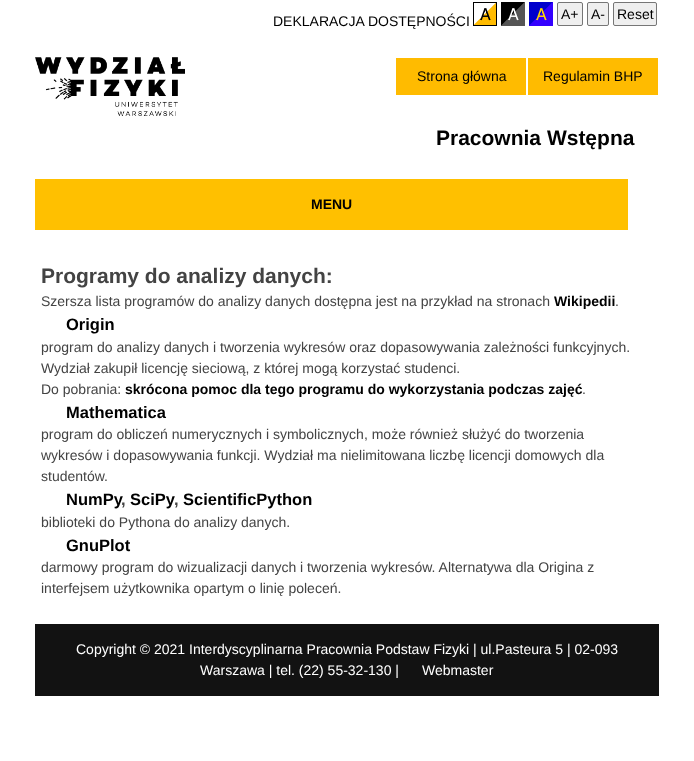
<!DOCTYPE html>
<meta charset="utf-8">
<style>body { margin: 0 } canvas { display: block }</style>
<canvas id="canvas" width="694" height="761"></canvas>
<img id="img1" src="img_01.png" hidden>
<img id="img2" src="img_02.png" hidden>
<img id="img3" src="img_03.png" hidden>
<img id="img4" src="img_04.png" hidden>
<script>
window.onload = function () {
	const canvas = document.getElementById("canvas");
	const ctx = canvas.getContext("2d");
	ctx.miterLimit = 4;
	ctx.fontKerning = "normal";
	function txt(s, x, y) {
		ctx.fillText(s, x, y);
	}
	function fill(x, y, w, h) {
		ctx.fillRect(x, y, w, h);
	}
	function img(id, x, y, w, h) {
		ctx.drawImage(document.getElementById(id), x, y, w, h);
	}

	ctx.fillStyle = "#FFFFFF";
	fill(0, 0, 694, 761);
	img("img1", 473, 2, 24, 24);
	img("img2", 501, 2, 24, 24);
	img("img3", 529, 2, 24, 24);
	ctx.fillStyle = "#EFEFEF";
	ctx.beginPath();
	ctx.roundRect(557.5, 2.5, 25, 23, 1.5);
	ctx.fill();
	ctx.strokeStyle = "#767676";
	ctx.stroke();
	ctx.beginPath();
	ctx.roundRect(587.5, 2.5, 21, 23, 1.5);
	ctx.fill();
	ctx.stroke();
	ctx.beginPath();
	ctx.roundRect(613.5, 2.5, 43, 23, 1.5);
	ctx.fill();
	ctx.stroke();
	img("img4", 35, 57, 150, 59);
	ctx.fillStyle = "#FFBB00";
	fill(396, 58, 130, 37);
	fill(528, 58, 130, 37);
	ctx.fillStyle = "#FFC000";
	fill(35, 179, 593, 51);
	ctx.fillStyle = "#121212";
	fill(35, 624, 624, 72);
	ctx.font = "14px Liberation Sans";
	ctx.fillStyle = "#000000";
	txt("DEKLARACJA DOSTĘPNOŚCI", 273, 26);
	txt("A+", 561, 19);
	txt("A-", 591, 19);
	txt("Reset", 617, 19);
	txt("Strona główna", 417, 81);
	txt("Regulamin BHP", 543, 81);
	ctx.font = "bold 21px Liberation Sans";
	txt("Pracownia Wstępna", 436, 145);
	ctx.font = "bold 14px Liberation Sans";
	txt("MENU", 311, 209);
	ctx.font = "bold 21px Liberation Sans";
	ctx.fillStyle = "#434343";
	txt("Programy do analizy danych:", 41, 283);
	ctx.font = "14px Liberation Sans";
	txt("Szersza lista programów do analizy danych dostępna jest na przykład na stronach", 41, 306);
	ctx.font = "bold 14px Liberation Sans";
	ctx.fillStyle = "#000000";
	txt("Wikipedii", 554, 306);
	ctx.font = "14px Liberation Sans";
	ctx.fillStyle = "#434343";
	txt(".", 615, 306);
	ctx.font = "bold 16.5px Liberation Sans";
	ctx.fillStyle = "#000000";
	txt("Origin", 66, 330);
	ctx.font = "14px Liberation Sans";
	ctx.fillStyle = "#434343";
	txt("program do analizy danych i tworzenia wykresów oraz dopasowywania zależności funkcyjnych.", 41, 352);
	txt("Wydział zakupił licencję sieciową, z której mogą korzystać studenci.", 41, 373);
	txt("Do pobrania:", 41, 394);
	ctx.font = "bold 14px Liberation Sans";
	ctx.fillStyle = "#000000";
	txt("skrócona pomoc dla tego programu do wykorzystania podczas zajęć", 125, 394);
	ctx.font = "14px Liberation Sans";
	ctx.fillStyle = "#434343";
	txt(".", 582, 394);
	ctx.font = "bold 16.5px Liberation Sans";
	ctx.fillStyle = "#000000";
	txt("Mathematica", 66, 418);
	ctx.font = "14px Liberation Sans";
	ctx.fillStyle = "#434343";
	txt("program do obliczeń numerycznych i symbolicznych, może również służyć do tworzenia", 41, 439);
	txt("wykresów i dopasowywania funkcji. Wydział ma nielimitowana liczbę licencji domowych dla", 41, 460);
	txt("studentów.", 41, 481);
	ctx.font = "bold 16.5px Liberation Sans";
	ctx.fillStyle = "#000000";
	txt("NumPy", 66, 505);
	ctx.fillStyle = "#434343";
	txt(",", 121, 505);
	ctx.fillStyle = "#000000";
	txt("SciPy", 130, 505);
	ctx.fillStyle = "#434343";
	txt(",", 174, 505);
	ctx.fillStyle = "#000000";
	txt("ScientificPython", 183, 505);
	ctx.font = "14px Liberation Sans";
	ctx.fillStyle = "#434343";
	txt("biblioteki do Pythona do analizy danych.", 41, 527);
	ctx.font = "bold 16.5px Liberation Sans";
	ctx.fillStyle = "#000000";
	txt("GnuPlot", 66, 551);
	ctx.font = "14px Liberation Sans";
	ctx.fillStyle = "#434343";
	txt("darmowy program do wizualizacji danych i tworzenia wykresów. Alternatywa dla Origina z", 41, 572);
	txt("interfejsem użytkownika opartym o linię poleceń.", 41, 593);
	ctx.fillStyle = "#FFFFFF";
	txt("Copyright © 2021 Interdyscyplinarna Pracownia Podstaw Fizyki | ul.Pasteura 5 | 02-093", 76, 654);
	txt("Warszawa | tel. (22) 55-32-130 |", 200, 675);
	txt("Webmaster", 422, 675);
};
</script>
